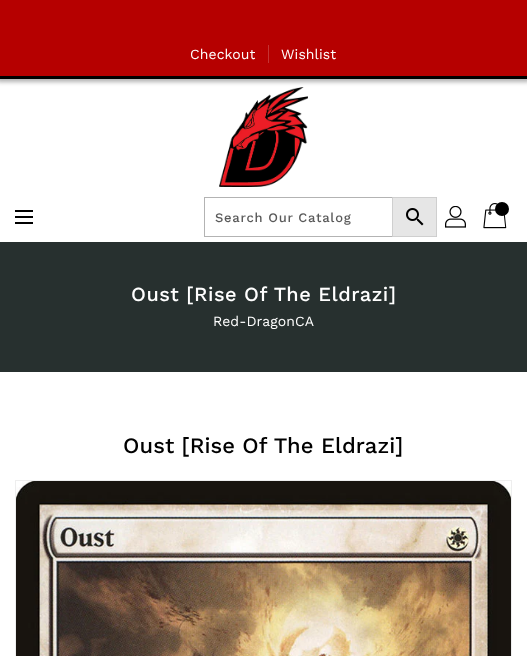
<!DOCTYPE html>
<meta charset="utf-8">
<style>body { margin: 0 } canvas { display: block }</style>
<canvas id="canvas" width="527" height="656"></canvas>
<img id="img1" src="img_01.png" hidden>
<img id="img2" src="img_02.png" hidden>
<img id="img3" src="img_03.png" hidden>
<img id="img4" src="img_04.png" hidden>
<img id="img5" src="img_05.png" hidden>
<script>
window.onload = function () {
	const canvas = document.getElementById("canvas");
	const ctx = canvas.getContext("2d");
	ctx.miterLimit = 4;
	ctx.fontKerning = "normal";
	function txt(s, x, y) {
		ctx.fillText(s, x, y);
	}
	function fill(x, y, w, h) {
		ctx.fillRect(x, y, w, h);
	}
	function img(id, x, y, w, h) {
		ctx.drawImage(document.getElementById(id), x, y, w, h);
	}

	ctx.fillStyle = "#FFFFFF";
	fill(0, 0, 527, 656);
	ctx.fillStyle = "rgba(0, 0, 0, 0.3)";
	ctx.filter = "blur(2px)";
	ctx.beginPath();
	ctx.rect(-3, -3, 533, 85);
	ctx.fill();
	ctx.filter = "none";
	ctx.fillStyle = "#B60000";
	fill(0, 0, 527, 76);
	ctx.fillStyle = "#000000";
	fill(0, 76, 527, 3);
	ctx.fillStyle = "#C53333";
	fill(268, 45, 1, 18);
	img("img1", 219, 87, 89, 100);
	ctx.fillStyle = "#000000";
	fill(15, 210, 18, 2);
	fill(15, 216, 18, 2);
	fill(15, 222, 18, 2);
	ctx.strokeStyle = "#B3B3B3";
	ctx.strokeRect(204.5, 197.5, 232, 39);
	ctx.fillStyle = "#E6E6E6";
	ctx.beginPath();
	ctx.rect(392.5, 197.5, 44, 39);
	ctx.fill();
	ctx.strokeStyle = "#CFCFCF";
	ctx.stroke();
	img("img2", 406, 208, 18, 18);
	img("img3", 445, 206, 21, 22);
	img("img4", 483, 203, 24, 26);
	ctx.fillStyle = "#000000";
	ctx.beginPath();
	ctx.arc(502, 209, 7, 0, Math.PI * 2);
	ctx.fill();
	ctx.fillStyle = "#27302F";
	fill(0, 242, 527, 130);
	ctx.strokeStyle = "#EEEEEE";
	ctx.strokeRect(15.5, 480.5, 496, 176);
	img("img5", 16, 481, 495, 175);
	ctx.letterSpacing = "0.1px";
	ctx.font = "14px Work Sans";
	ctx.fillStyle = "#FFFFFF";
	txt("Checkout", 190, 59);
	txt("Wishlist", 281, 59);
	ctx.letterSpacing = "0.75px";
	ctx.font = "500 13px Work Sans";
	ctx.fillStyle = "#595959";
	txt("Search Our Catalog", 215, 222);
	ctx.letterSpacing = "0.5px";
	ctx.font = "500 20px Work Sans";
	ctx.fillStyle = "#FFFFFF";
	txt("Oust [Rise Of The Eldrazi]", 131, 301);
	ctx.letterSpacing = "0.1px";
	ctx.font = "14px Work Sans";
	txt("Red-DragonCA", 213, 326);
	ctx.font = "500 22px Work Sans";
	ctx.fillStyle = "#000000";
	txt("Oust [Rise Of The Eldrazi]", 123, 453);
};
</script>
